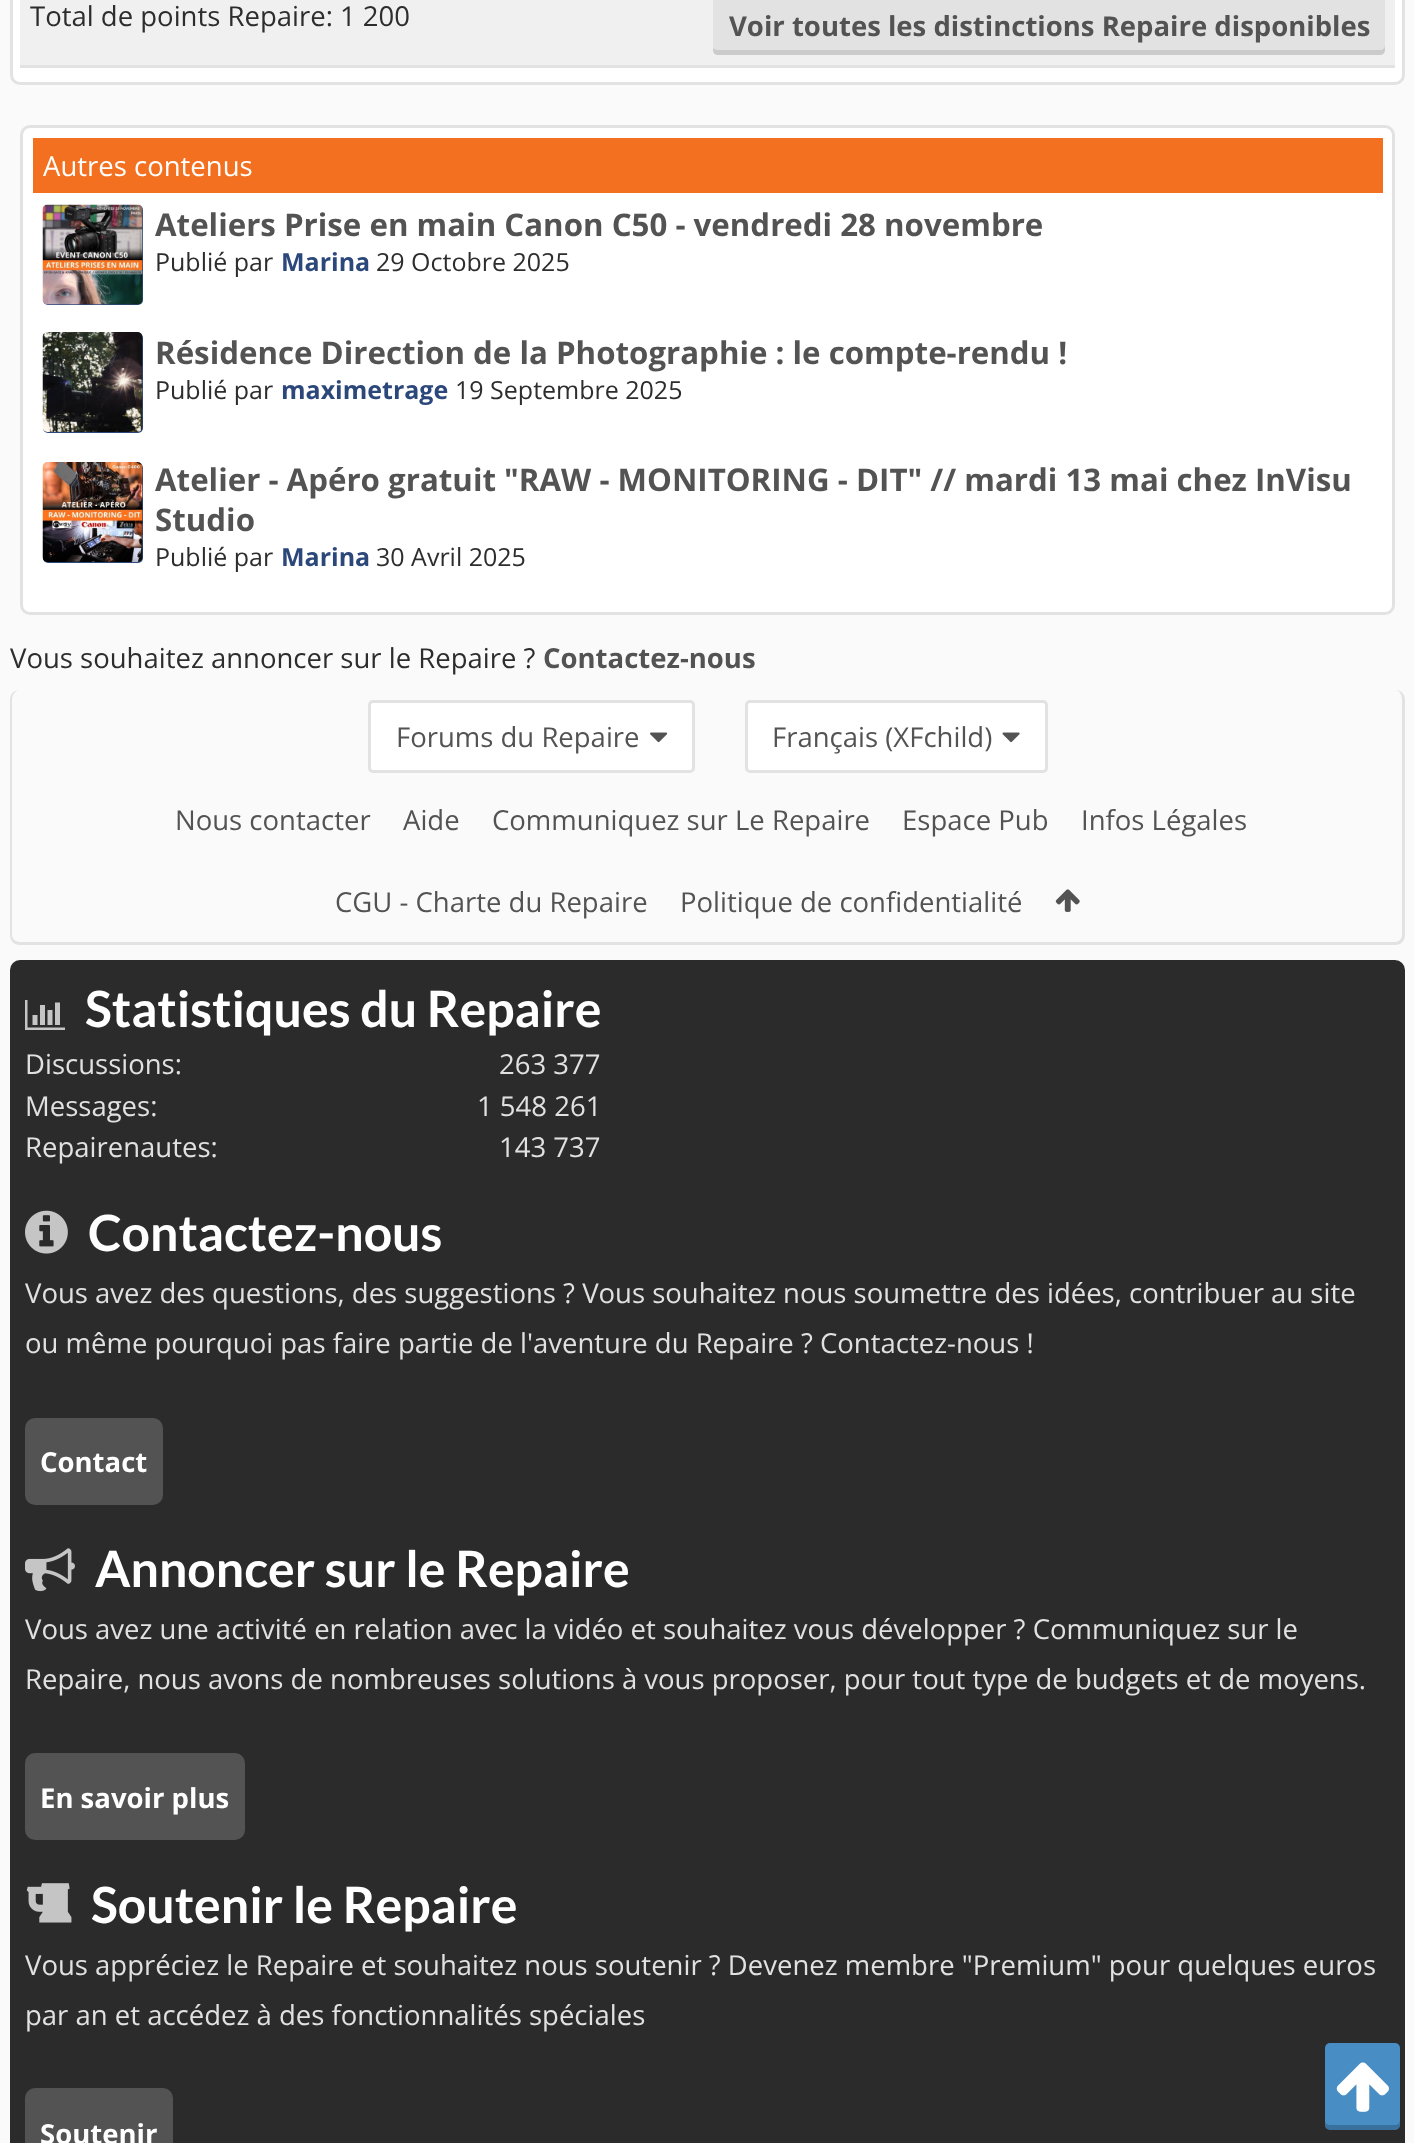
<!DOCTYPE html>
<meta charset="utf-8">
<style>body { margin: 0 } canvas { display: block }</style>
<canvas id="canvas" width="1414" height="2143"></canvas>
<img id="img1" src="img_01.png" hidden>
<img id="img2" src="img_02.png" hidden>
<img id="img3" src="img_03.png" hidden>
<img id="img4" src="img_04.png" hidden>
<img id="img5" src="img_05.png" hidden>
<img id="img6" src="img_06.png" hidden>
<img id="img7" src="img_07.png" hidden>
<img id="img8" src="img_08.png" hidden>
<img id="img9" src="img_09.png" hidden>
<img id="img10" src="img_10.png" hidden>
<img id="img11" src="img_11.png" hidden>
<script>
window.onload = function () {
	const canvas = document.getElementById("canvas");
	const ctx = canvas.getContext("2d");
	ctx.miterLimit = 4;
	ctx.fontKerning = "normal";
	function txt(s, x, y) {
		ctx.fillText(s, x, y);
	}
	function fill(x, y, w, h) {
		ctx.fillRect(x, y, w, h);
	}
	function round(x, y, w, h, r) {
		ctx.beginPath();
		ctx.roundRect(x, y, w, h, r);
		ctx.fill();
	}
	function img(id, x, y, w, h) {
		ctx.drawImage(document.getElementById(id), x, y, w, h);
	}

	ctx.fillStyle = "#FAFAFA";
	fill(0, 0, 1414, 2143);
	ctx.fillStyle = "#FFFFFF";
	ctx.beginPath();
	ctx.roundRect(11.5, -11.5, 1392, 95, 8.5);
	ctx.fill();
	ctx.strokeStyle = "#E2E2E2";
	ctx.lineWidth = 3;
	ctx.stroke();
	ctx.fillStyle = "#F0F0F0";
	fill(20, 0, 1375, 65);
	ctx.fillStyle = "#E2E2E2";
	fill(20, 65, 1375, 3);
	round(713, -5, 672, 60, 5);
	ctx.fillStyle = "rgba(0, 0, 0, 0.1)";
	ctx.beginPath();
	ctx.moveTo(713, 48);
	ctx.lineTo(713, 50);
	ctx.bezierCurveTo(713, 53, 715, 55, 718, 55);
	ctx.lineTo(1380, 55);
	ctx.bezierCurveTo(1383, 55, 1385, 53, 1385, 50);
	ctx.lineTo(1385, 45);
	ctx.bezierCurveTo(1385, 48, 1383, 50, 1380, 50);
	ctx.lineTo(718, 50);
	ctx.bezierCurveTo(716, 50, 714, 49, 713, 48);
	ctx.closePath();
	ctx.fill();
	ctx.fillStyle = "#FFFFFF";
	ctx.beginPath();
	ctx.roundRect(21.5, 126.5, 1372, 487, 8.5);
	ctx.fill();
	ctx.stroke();
	ctx.fillStyle = "#F37020";
	fill(33, 138, 1350, 55);
	ctx.fillStyle = "#2C487B";
	round(43, 205, 100, 100, 5);
	img("img1", 42, 204, 101, 101);
	round(43, 333, 100, 100, 5);
	img("img2", 42, 332, 101, 100);
	round(43, 463, 100, 100, 5);
	img("img3", 42, 462, 101, 100);
	ctx.fillStyle = "#E2E2E2";
	ctx.beginPath();
	ctx.moveTo(20, 690);
	ctx.lineTo(1395, 690);
	ctx.bezierCurveTo(1401, 690, 1405, 694, 1405, 700);
	ctx.lineTo(1405, 935);
	ctx.bezierCurveTo(1405, 941, 1401, 945, 1395, 945);
	ctx.lineTo(20, 945);
	ctx.bezierCurveTo(14, 945, 10, 941, 10, 935);
	ctx.lineTo(10, 700);
	ctx.bezierCurveTo(10, 694, 14, 690, 20, 690);
	ctx.closePath();
	ctx.moveTo(20, 690);
	ctx.lineTo(1395, 690);
	ctx.bezierCurveTo(1399, 690, 1402, 694, 1402, 700);
	ctx.lineTo(1402, 935);
	ctx.bezierCurveTo(1402, 939, 1399, 942, 1395, 942);
	ctx.lineTo(20, 942);
	ctx.bezierCurveTo(16, 942, 12, 939, 12, 935);
	ctx.lineTo(12, 700);
	ctx.bezierCurveTo(12, 694, 16, 690, 20, 690);
	ctx.closePath();
	ctx.fill("evenodd");
	ctx.fillStyle = "#FFFFFF";
	ctx.beginPath();
	ctx.roundRect(369.5, 701.5, 324, 70, 3.5);
	ctx.fill();
	ctx.stroke();
	img("img4", 650, 732, 18, 11);
	ctx.beginPath();
	ctx.roundRect(746.5, 701.5, 300, 70, 3.5);
	ctx.fill();
	ctx.stroke();
	img("img5", 1002, 732, 18, 11);
	img("img6", 1055, 889, 25, 23);
	ctx.fillStyle = "#2B2B2B";
	round(10, 960, 1395, 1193, 10);
	img("img7", 25, 1000, 40, 30);
	img("img8", 25, 1210, 43, 44);
	ctx.fillStyle = "#535353";
	round(25, 1418, 138, 87, 10);
	img("img9", 25, 1548, 50, 44);
	round(25, 1753, 220, 87, 10);
	img("img10", 26, 1883, 46, 40);
	round(25, 2088, 148, 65, 10);
	ctx.fillStyle = "#498DC5";
	round(1325, 2043, 75, 87, 5);
	ctx.fillStyle = "rgba(0, 0, 0, 0.2)";
	ctx.beginPath();
	ctx.moveTo(1325, 2120);
	ctx.bezierCurveTo(1325, 2132, 1328, 2130, 1341, 2130);
	ctx.lineTo(1384, 2130);
	ctx.bezierCurveTo(1397, 2130, 1400, 2132, 1400, 2120);
	ctx.bezierCurveTo(1400, 2123, 1398, 2125, 1395, 2125);
	ctx.lineTo(1330, 2125);
	ctx.bezierCurveTo(1327, 2125, 1325, 2123, 1325, 2120);
	ctx.closePath();
	ctx.fill();
	img("img11", 1336, 2062, 53, 50);
	ctx.font = "27.5px Open Sans";
	ctx.fillStyle = "#2D2D2D";
	txt("Total de points Repaire: 1 200", 30, 26);
	ctx.font = "bold 27.5px Open Sans";
	ctx.fillStyle = "#535353";
	txt("Voir toutes les distinctions Repaire disponibles", 729, 36);
	ctx.font = "27.5px Open Sans";
	ctx.fillStyle = "#FFFFFF";
	txt("Autres contenus", 43, 176);
	ctx.font = "bold 31.25px Open Sans";
	ctx.fillStyle = "#535353";
	txt("Ateliers Prise en main Canon C50 - vendredi 28 novembre", 155, 236);
	ctx.font = "25px Open Sans";
	ctx.fillStyle = "#2D2D2D";
	txt("Publié par", 155, 271);
	ctx.font = "bold 25px Open Sans";
	ctx.fillStyle = "#2C487B";
	txt("Marina", 281, 271);
	ctx.font = "25px Open Sans";
	ctx.fillStyle = "#2D2D2D";
	txt("29 Octobre 2025", 376, 271);
	ctx.font = "bold 31.25px Open Sans";
	ctx.fillStyle = "#535353";
	txt("Résidence Direction de la Photographie : le compte-rendu !", 155, 364);
	ctx.font = "25px Open Sans";
	ctx.fillStyle = "#2D2D2D";
	txt("Publié par", 155, 399);
	ctx.font = "bold 25px Open Sans";
	ctx.fillStyle = "#2C487B";
	txt("maximetrage", 281, 399);
	ctx.font = "25px Open Sans";
	ctx.fillStyle = "#2D2D2D";
	txt("19 Septembre 2025", 455, 399);
	ctx.font = "bold 31.25px Open Sans";
	ctx.fillStyle = "#535353";
	txt("Atelier - Apéro gratuit \"RAW - MONITORING - DIT\" // mardi 13 mai chez InVisu", 155, 491);
	txt("Studio", 155, 531);
	ctx.font = "25px Open Sans";
	ctx.fillStyle = "#2D2D2D";
	txt("Publié par", 155, 566);
	ctx.font = "bold 25px Open Sans";
	ctx.fillStyle = "#2C487B";
	txt("Marina", 281, 566);
	ctx.font = "25px Open Sans";
	ctx.fillStyle = "#2D2D2D";
	txt("30 Avril 2025", 376, 566);
	ctx.font = "27.5px Open Sans";
	txt("Vous souhaitez annoncer sur le Repaire ?", 10, 668);
	ctx.font = "bold 27.5px Open Sans";
	ctx.fillStyle = "#535353";
	txt("Contactez-nous", 543, 668);
	ctx.font = "27.5px Open Sans";
	txt("Forums du Repaire", 396, 747);
	txt("Français (XFchild)", 772, 747);
	txt("Nous contacter", 175, 830);
	txt("Aide", 403, 830);
	txt("Communiquez sur Le Repaire", 492, 830);
	txt("Espace Pub", 902, 830);
	txt("Infos Légales", 1081, 830);
	txt("CGU - Charte du Repaire", 335, 912);
	txt("Politique de confidentialité", 680, 912);
	ctx.font = "bold 50px Lato";
	ctx.fillStyle = "#FFFFFF";
	txt("Statistiques du Repaire", 85, 1027);
	ctx.font = "27.5px Open Sans";
	ctx.fillStyle = "#E1E1E1";
	txt("Discussions:", 25, 1074);
	txt("263 377", 499, 1074);
	txt("Messages:", 25, 1116);
	txt("1 548 261", 477, 1116);
	txt("Repairenautes:", 25, 1157);
	txt("143 737", 499, 1157);
	ctx.font = "bold 50px Lato";
	ctx.fillStyle = "#FFFFFF";
	txt("Contactez-nous", 88, 1251);
	ctx.font = "27.5px Open Sans";
	ctx.fillStyle = "#E1E1E1";
	txt("Vous avez des questions, des suggestions ? Vous souhaitez nous soumettre des idées, contribuer au site", 25, 1303);
	txt("ou même pourquoi pas faire partie de l'aventure du Repaire ? Contactez-nous !", 25, 1353);
	ctx.font = "bold 27.5px Open Sans";
	ctx.fillStyle = "#FFFFFF";
	txt("Contact", 40, 1472);
	ctx.font = "bold 50px Lato";
	txt("Annoncer sur le Repaire", 95, 1587);
	ctx.font = "27.5px Open Sans";
	ctx.fillStyle = "#E1E1E1";
	txt("Vous avez une activité en relation avec la vidéo et souhaitez vous développer ? Communiquez sur le", 25, 1639);
	txt("Repaire, nous avons de nombreuses solutions à vous proposer, pour tout type de budgets et de moyens.", 25, 1689);
	ctx.font = "bold 27.5px Open Sans";
	ctx.fillStyle = "#FFFFFF";
	txt("En savoir plus", 40, 1808);
	ctx.font = "bold 50px Lato";
	txt("Soutenir le Repaire", 91, 1923);
	ctx.font = "27.5px Open Sans";
	ctx.fillStyle = "#E1E1E1";
	txt("Vous appréciez le Repaire et souhaitez nous soutenir ? Devenez membre \"Premium\" pour quelques euros", 25, 1975);
	txt("par an et accédez à des fonctionnalités spéciales", 25, 2025);
	ctx.font = "bold 27.5px Open Sans";
	ctx.fillStyle = "#FFFFFF";
	txt("Soutenir", 40, 2144);
};
</script>
